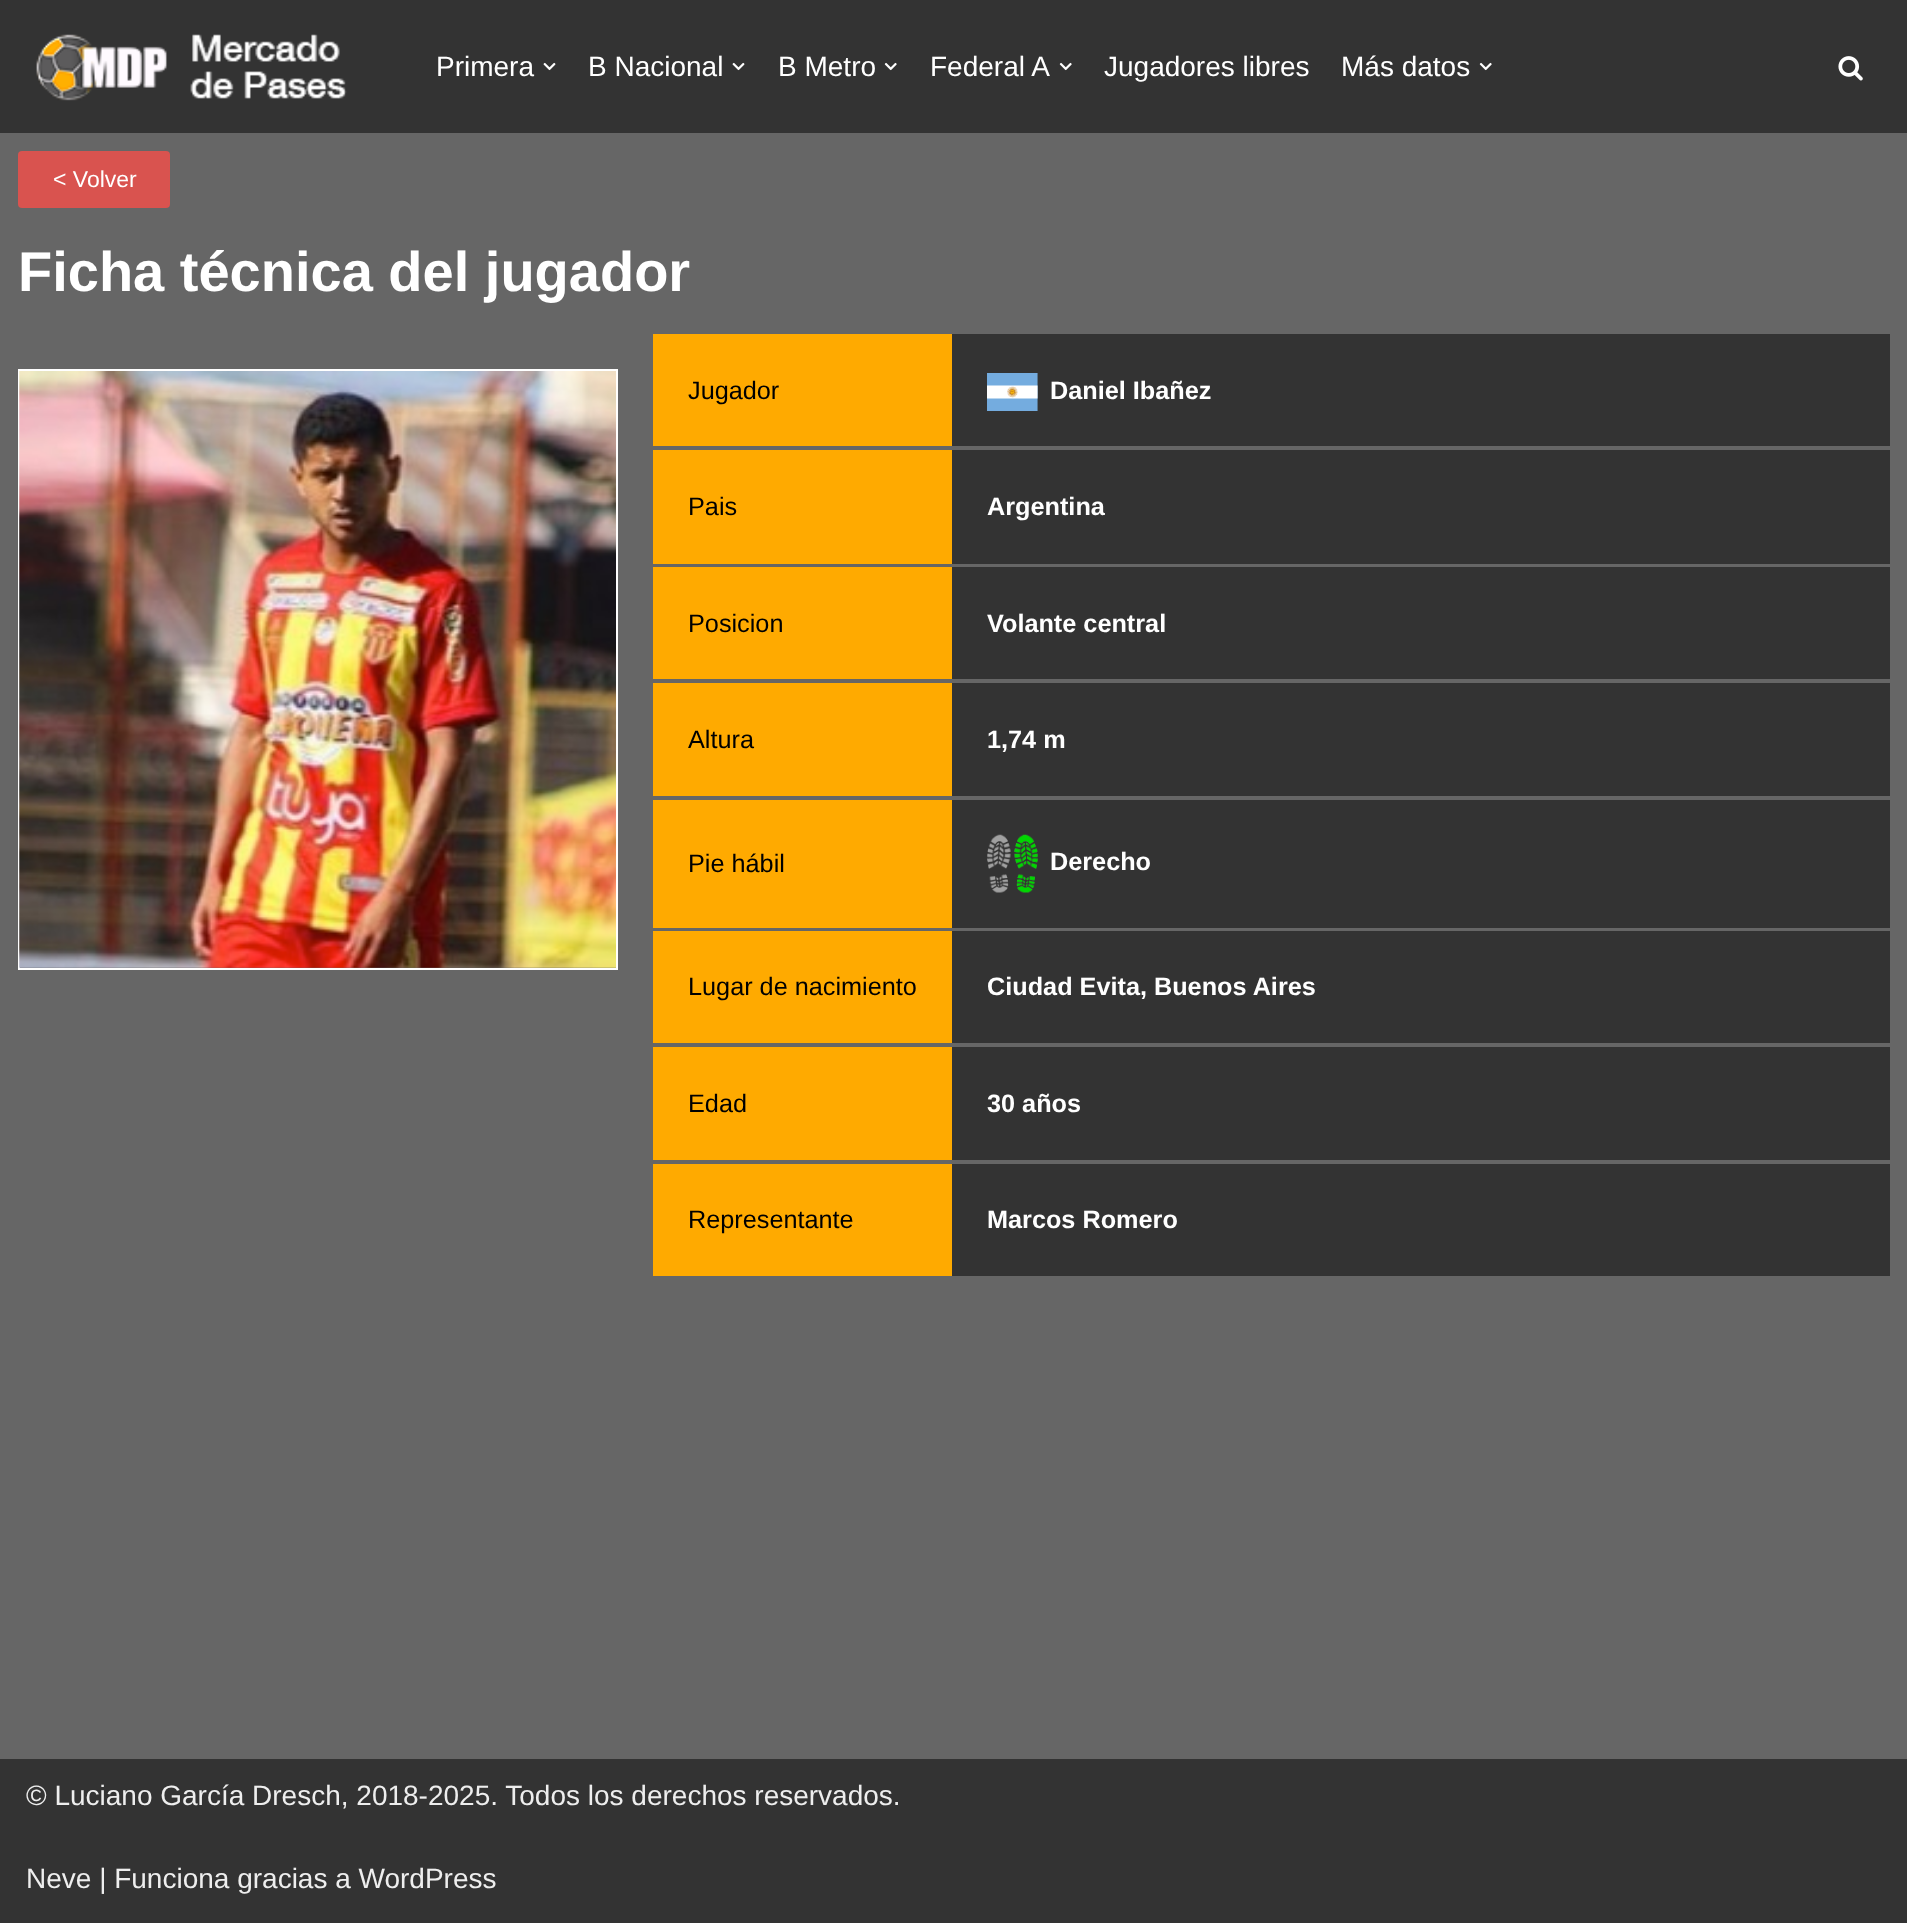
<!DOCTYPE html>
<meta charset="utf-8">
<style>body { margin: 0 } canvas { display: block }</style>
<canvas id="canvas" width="1907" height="1923"></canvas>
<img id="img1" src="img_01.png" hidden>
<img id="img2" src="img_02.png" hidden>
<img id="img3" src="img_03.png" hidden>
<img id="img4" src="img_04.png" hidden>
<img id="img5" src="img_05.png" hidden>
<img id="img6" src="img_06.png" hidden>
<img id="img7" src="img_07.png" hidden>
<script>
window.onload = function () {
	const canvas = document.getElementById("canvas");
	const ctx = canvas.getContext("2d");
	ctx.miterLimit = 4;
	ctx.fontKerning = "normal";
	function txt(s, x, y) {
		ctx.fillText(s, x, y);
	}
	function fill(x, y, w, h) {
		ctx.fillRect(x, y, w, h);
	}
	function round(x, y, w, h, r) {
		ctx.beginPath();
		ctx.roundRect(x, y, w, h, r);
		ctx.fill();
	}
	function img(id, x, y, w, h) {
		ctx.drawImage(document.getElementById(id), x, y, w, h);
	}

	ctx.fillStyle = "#666666";
	fill(0, 0, 1907, 1923);
	ctx.fillStyle = "#333333";
	fill(0, 0, 1907, 133);
	img("img1", 36, 34, 311, 67);
	img("img2", 543, 62, 13, 9);
	img("img2", 732, 62, 13, 9);
	img("img3", 884, 62, 13, 9);
	img("img3", 1059, 62, 13, 9);
	img("img3", 1479, 62, 13, 9);
	img("img4", 1838, 56, 25, 25);
	ctx.fillStyle = "#D9534F";
	round(18, 151, 152, 57, 4);
	ctx.strokeStyle = "#FFFFFF";
	ctx.lineWidth = 2;
	ctx.strokeRect(19, 370, 598, 599);
	img("img5", 19, 371, 597, 597);
	ctx.fillStyle = "#FFAA00";
	fill(653, 334, 299, 112);
	ctx.fillStyle = "#333333";
	fill(952, 334, 938, 112);
	img("img6", 987, 373, 51, 38);
	ctx.fillStyle = "#FFAA00";
	fill(653, 450, 299, 114);
	ctx.fillStyle = "#333333";
	fill(952, 450, 938, 114);
	ctx.fillStyle = "#FFAA00";
	fill(653, 567, 299, 112);
	ctx.fillStyle = "#333333";
	fill(952, 567, 938, 112);
	ctx.fillStyle = "#FFAA00";
	fill(653, 683, 299, 113);
	ctx.fillStyle = "#333333";
	fill(952, 683, 938, 113);
	ctx.fillStyle = "#FFAA00";
	fill(653, 800, 299, 128);
	ctx.fillStyle = "#333333";
	fill(952, 800, 938, 128);
	img("img7", 987, 834, 51, 59);
	ctx.fillStyle = "#FFAA00";
	fill(653, 931, 299, 112);
	ctx.fillStyle = "#333333";
	fill(952, 931, 938, 112);
	ctx.fillStyle = "#FFAA00";
	fill(653, 1047, 299, 113);
	ctx.fillStyle = "#333333";
	fill(952, 1047, 938, 113);
	ctx.fillStyle = "#FFAA00";
	fill(653, 1164, 299, 112);
	ctx.fillStyle = "#333333";
	fill(952, 1164, 938, 112);
	fill(0, 1759, 1907, 164);
	ctx.font = "28px Liberation Sans";
	ctx.fillStyle = "#FFFFFF";
	txt("Primera", 436, 76);
	txt("B Nacional", 588, 76);
	txt("B Metro", 778, 76);
	txt("Federal A", 930, 76);
	txt("Jugadores libres", 1104, 76);
	txt("Más datos", 1341, 76);
	ctx.font = "23px Liberation Sans";
	txt("< Volver", 53, 187);
	ctx.font = "bold 56px Liberation Sans";
	txt("Ficha técnica del jugador", 18, 291);
	ctx.font = "25.25px Liberation Sans";
	ctx.fillStyle = "#000000";
	txt("Jugador", 688, 399);
	ctx.font = "bold 25.25px Liberation Sans";
	ctx.fillStyle = "#FFFFFF";
	txt("Daniel Ibañez", 1050, 399);
	ctx.font = "25.25px Liberation Sans";
	ctx.fillStyle = "#000000";
	txt("Pais", 688, 515);
	ctx.font = "bold 25.25px Liberation Sans";
	ctx.fillStyle = "#FFFFFF";
	txt("Argentina", 987, 515);
	ctx.font = "25.25px Liberation Sans";
	ctx.fillStyle = "#000000";
	txt("Posicion", 688, 632);
	ctx.font = "bold 25.25px Liberation Sans";
	ctx.fillStyle = "#FFFFFF";
	txt("Volante central", 987, 632);
	ctx.font = "25.25px Liberation Sans";
	ctx.fillStyle = "#000000";
	txt("Altura", 688, 748);
	ctx.font = "bold 25.25px Liberation Sans";
	ctx.fillStyle = "#FFFFFF";
	txt("1,74 m", 987, 748);
	ctx.font = "25.25px Liberation Sans";
	ctx.fillStyle = "#000000";
	txt("Pie hábil", 688, 872);
	ctx.font = "bold 25.25px Liberation Sans";
	ctx.fillStyle = "#FFFFFF";
	txt("Derecho", 1050, 870);
	ctx.font = "25.25px Liberation Sans";
	ctx.fillStyle = "#000000";
	txt("Lugar de nacimiento", 688, 995);
	ctx.font = "bold 25.25px Liberation Sans";
	ctx.fillStyle = "#FFFFFF";
	txt("Ciudad Evita, Buenos Aires", 987, 995);
	ctx.font = "25.25px Liberation Sans";
	ctx.fillStyle = "#000000";
	txt("Edad", 688, 1112);
	ctx.font = "bold 25.25px Liberation Sans";
	ctx.fillStyle = "#FFFFFF";
	txt("30 años", 987, 1112);
	ctx.font = "25.25px Liberation Sans";
	ctx.fillStyle = "#000000";
	txt("Representante", 688, 1228);
	ctx.font = "bold 25.25px Liberation Sans";
	ctx.fillStyle = "#FFFFFF";
	txt("Marcos Romero", 987, 1228);
	ctx.font = "28px Liberation Sans";
	ctx.fillStyle = "#EEEEEE";
	txt("© Luciano García Dresch, 2018-2025. Todos los derechos reservados.", 26, 1805);
	txt("Neve | Funciona gracias a WordPress", 26, 1888);
};
</script>
